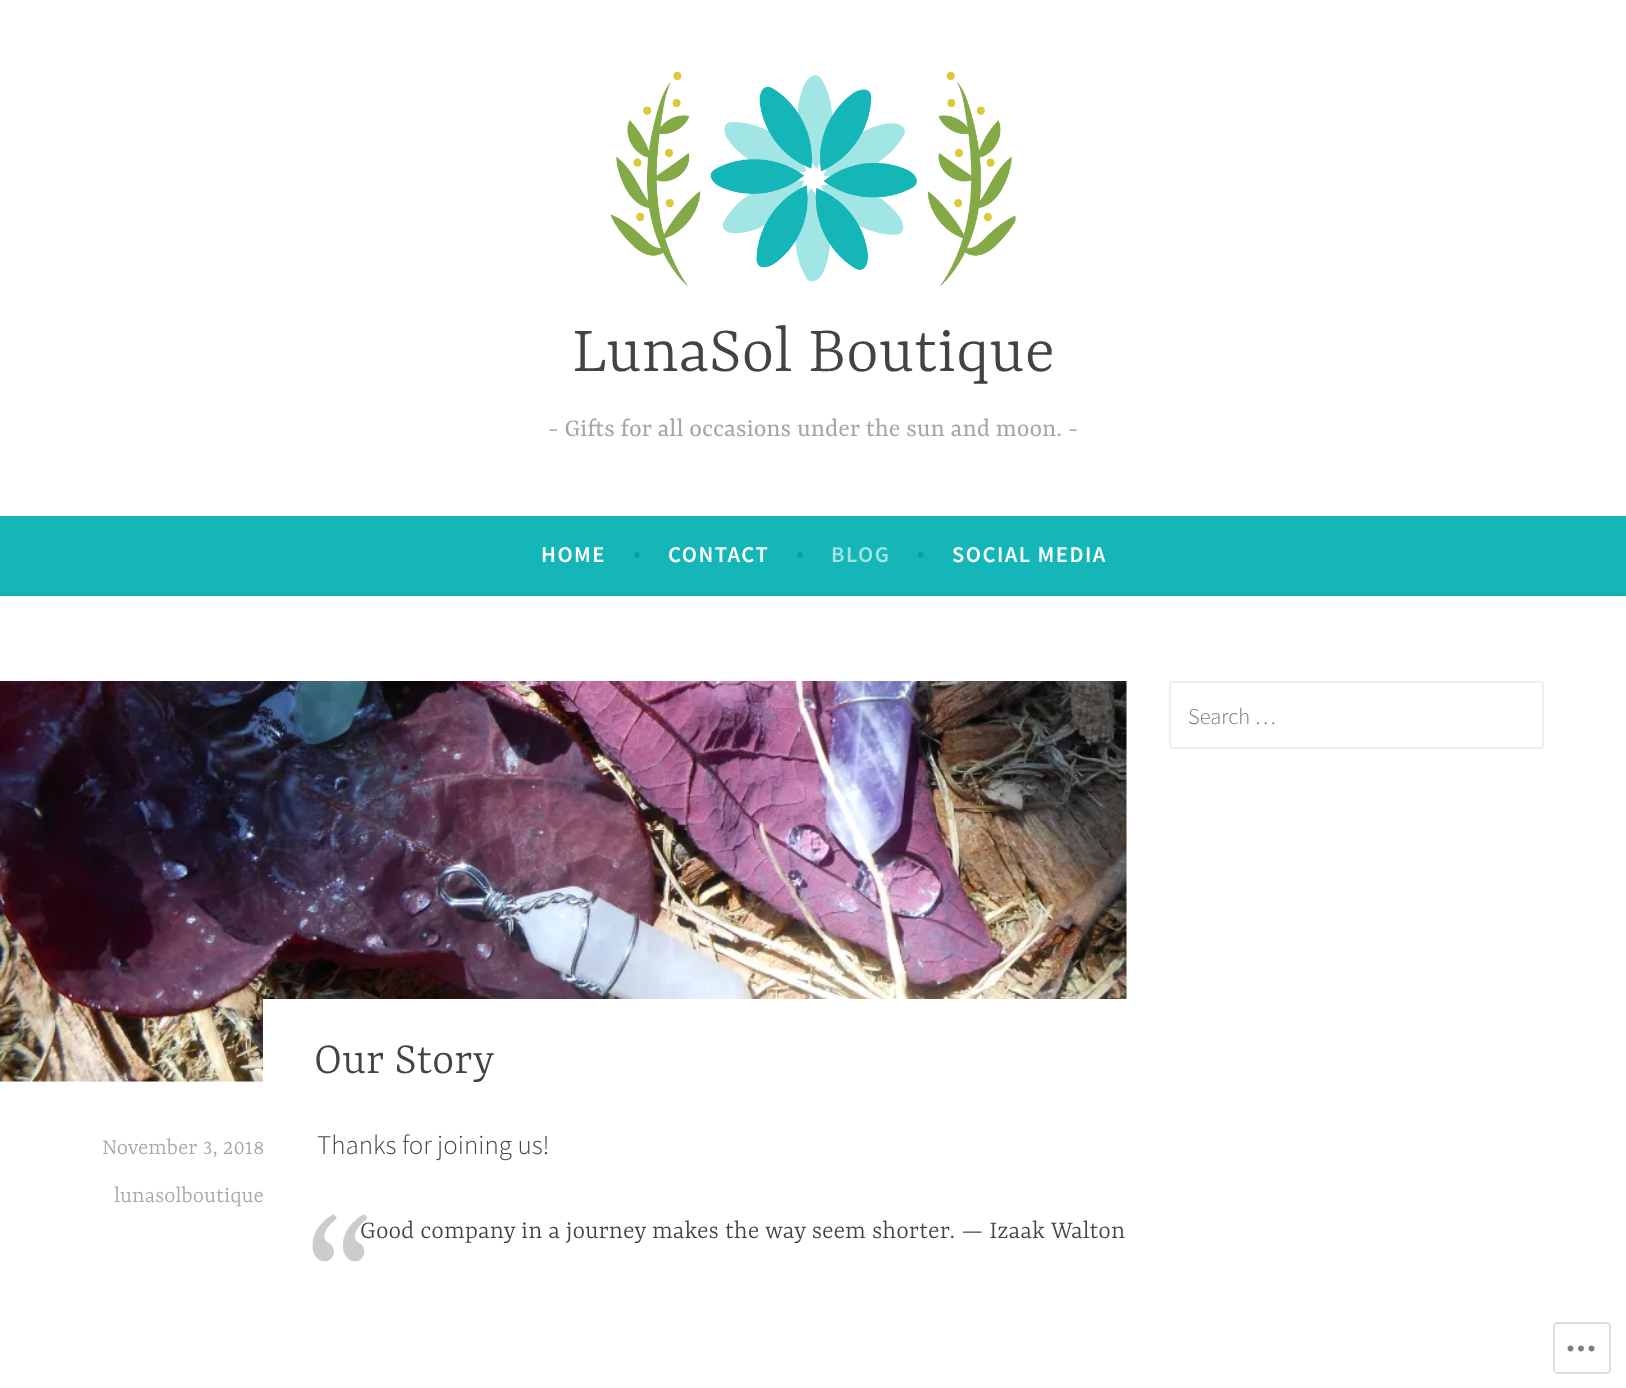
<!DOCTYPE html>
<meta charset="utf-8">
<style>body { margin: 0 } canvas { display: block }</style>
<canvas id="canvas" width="1626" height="1388"></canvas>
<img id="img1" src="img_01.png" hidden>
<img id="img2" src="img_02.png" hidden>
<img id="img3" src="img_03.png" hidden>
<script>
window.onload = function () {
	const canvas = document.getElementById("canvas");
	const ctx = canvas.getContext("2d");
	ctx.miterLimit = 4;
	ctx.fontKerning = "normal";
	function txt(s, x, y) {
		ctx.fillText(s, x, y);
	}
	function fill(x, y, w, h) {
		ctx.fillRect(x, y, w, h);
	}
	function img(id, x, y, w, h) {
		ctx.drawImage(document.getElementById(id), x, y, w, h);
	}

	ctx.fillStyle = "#FFFFFF";
	fill(0, 0, 1626, 1388);
	img("img1", 610, 72, 406, 215);
	ctx.fillStyle = "#15B6B8";
	fill(0, 516, 1626, 77);
	ctx.fillStyle = "#14B1B2";
	fill(0, 593, 1626, 3);
	ctx.beginPath();
	ctx.roundRect(1170, 682, 373, 66, 2);
	ctx.strokeStyle = "#EEEEEE";
	ctx.lineWidth = 2;
	ctx.stroke();
	ctx.fillStyle = "#F8F9F8";
	fill(0, 681, 1127, 401);
	img("img2", 0, 681, 1127, 401);
	ctx.fillStyle = "#FFFFFF";
	fill(263, 999, 864, 83);
	ctx.beginPath();
	ctx.roundRect(1554, 1323, 56, 50, 4);
	ctx.strokeStyle = "#DDDDDF";
	ctx.stroke();
	img("img3", 1567, 1345, 28, 7);
	ctx.font = "300 70.5px Yrsa";
	ctx.fillStyle = "#444340";
	txt("LunaSol Boutique", 572, 371);
	ctx.font = "27px Yrsa";
	ctx.fillStyle = "#A8A6A1";
	txt("- Gifts for all occasions under the sun and moon. -", 548, 436);
	ctx.letterSpacing = "1.5px";
	ctx.font = "600 22.5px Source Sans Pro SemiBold";
	ctx.fillStyle = "#FFFFFF";
	txt("HOME", 541, 562);
	ctx.letterSpacing = "0px";
	ctx.font = "300 27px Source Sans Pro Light";
	ctx.fillStyle = "#129B9C";
	txt("•", 633, 562);
	ctx.letterSpacing = "1.5px";
	ctx.font = "600 22.5px Source Sans Pro SemiBold";
	ctx.fillStyle = "#FFFFFF";
	txt("CONTACT", 668, 562);
	ctx.letterSpacing = "0px";
	ctx.font = "300 27px Source Sans Pro Light";
	ctx.fillStyle = "#129B9C";
	txt("•", 796, 562);
	ctx.letterSpacing = "1.5px";
	ctx.font = "600 22.5px Source Sans Pro SemiBold";
	ctx.fillStyle = "#A1E2E3";
	txt("BLOG", 831, 562);
	ctx.letterSpacing = "0px";
	ctx.font = "300 27px Source Sans Pro Light";
	ctx.fillStyle = "#129B9C";
	txt("•", 917, 562);
	ctx.letterSpacing = "1.5px";
	ctx.font = "600 22.5px Source Sans Pro SemiBold";
	ctx.fillStyle = "#FFFFFF";
	txt("SOCIAL MEDIA", 952, 562);
	ctx.letterSpacing = "0px";
	ctx.font = "300 22.5px Source Sans Pro Light";
	ctx.fillStyle = "#757575";
	txt("Search …", 1188, 724);
	ctx.font = "300 48px Yrsa";
	ctx.fillStyle = "#444340";
	txt("Our Story", 314, 1073);
	ctx.font = "300 24px Yrsa";
	ctx.fillStyle = "#A8A6A1";
	txt("November 3, 2018", 102, 1154);
	txt("lunasolboutique", 114, 1202);
	ctx.font = "300 27px Source Sans Pro Light";
	ctx.fillStyle = "#444340";
	txt("Thanks for joining us!", 317, 1154);
	ctx.font = "300 27px Yrsa";
	txt("Good company in a journey makes the way seem shorter. — Izaak Walton", 360, 1238);
	ctx.font = "300 210px Yrsa";
	ctx.fillStyle = "#CCCCCC";
	txt("“", 302, 1356);
};
</script>
